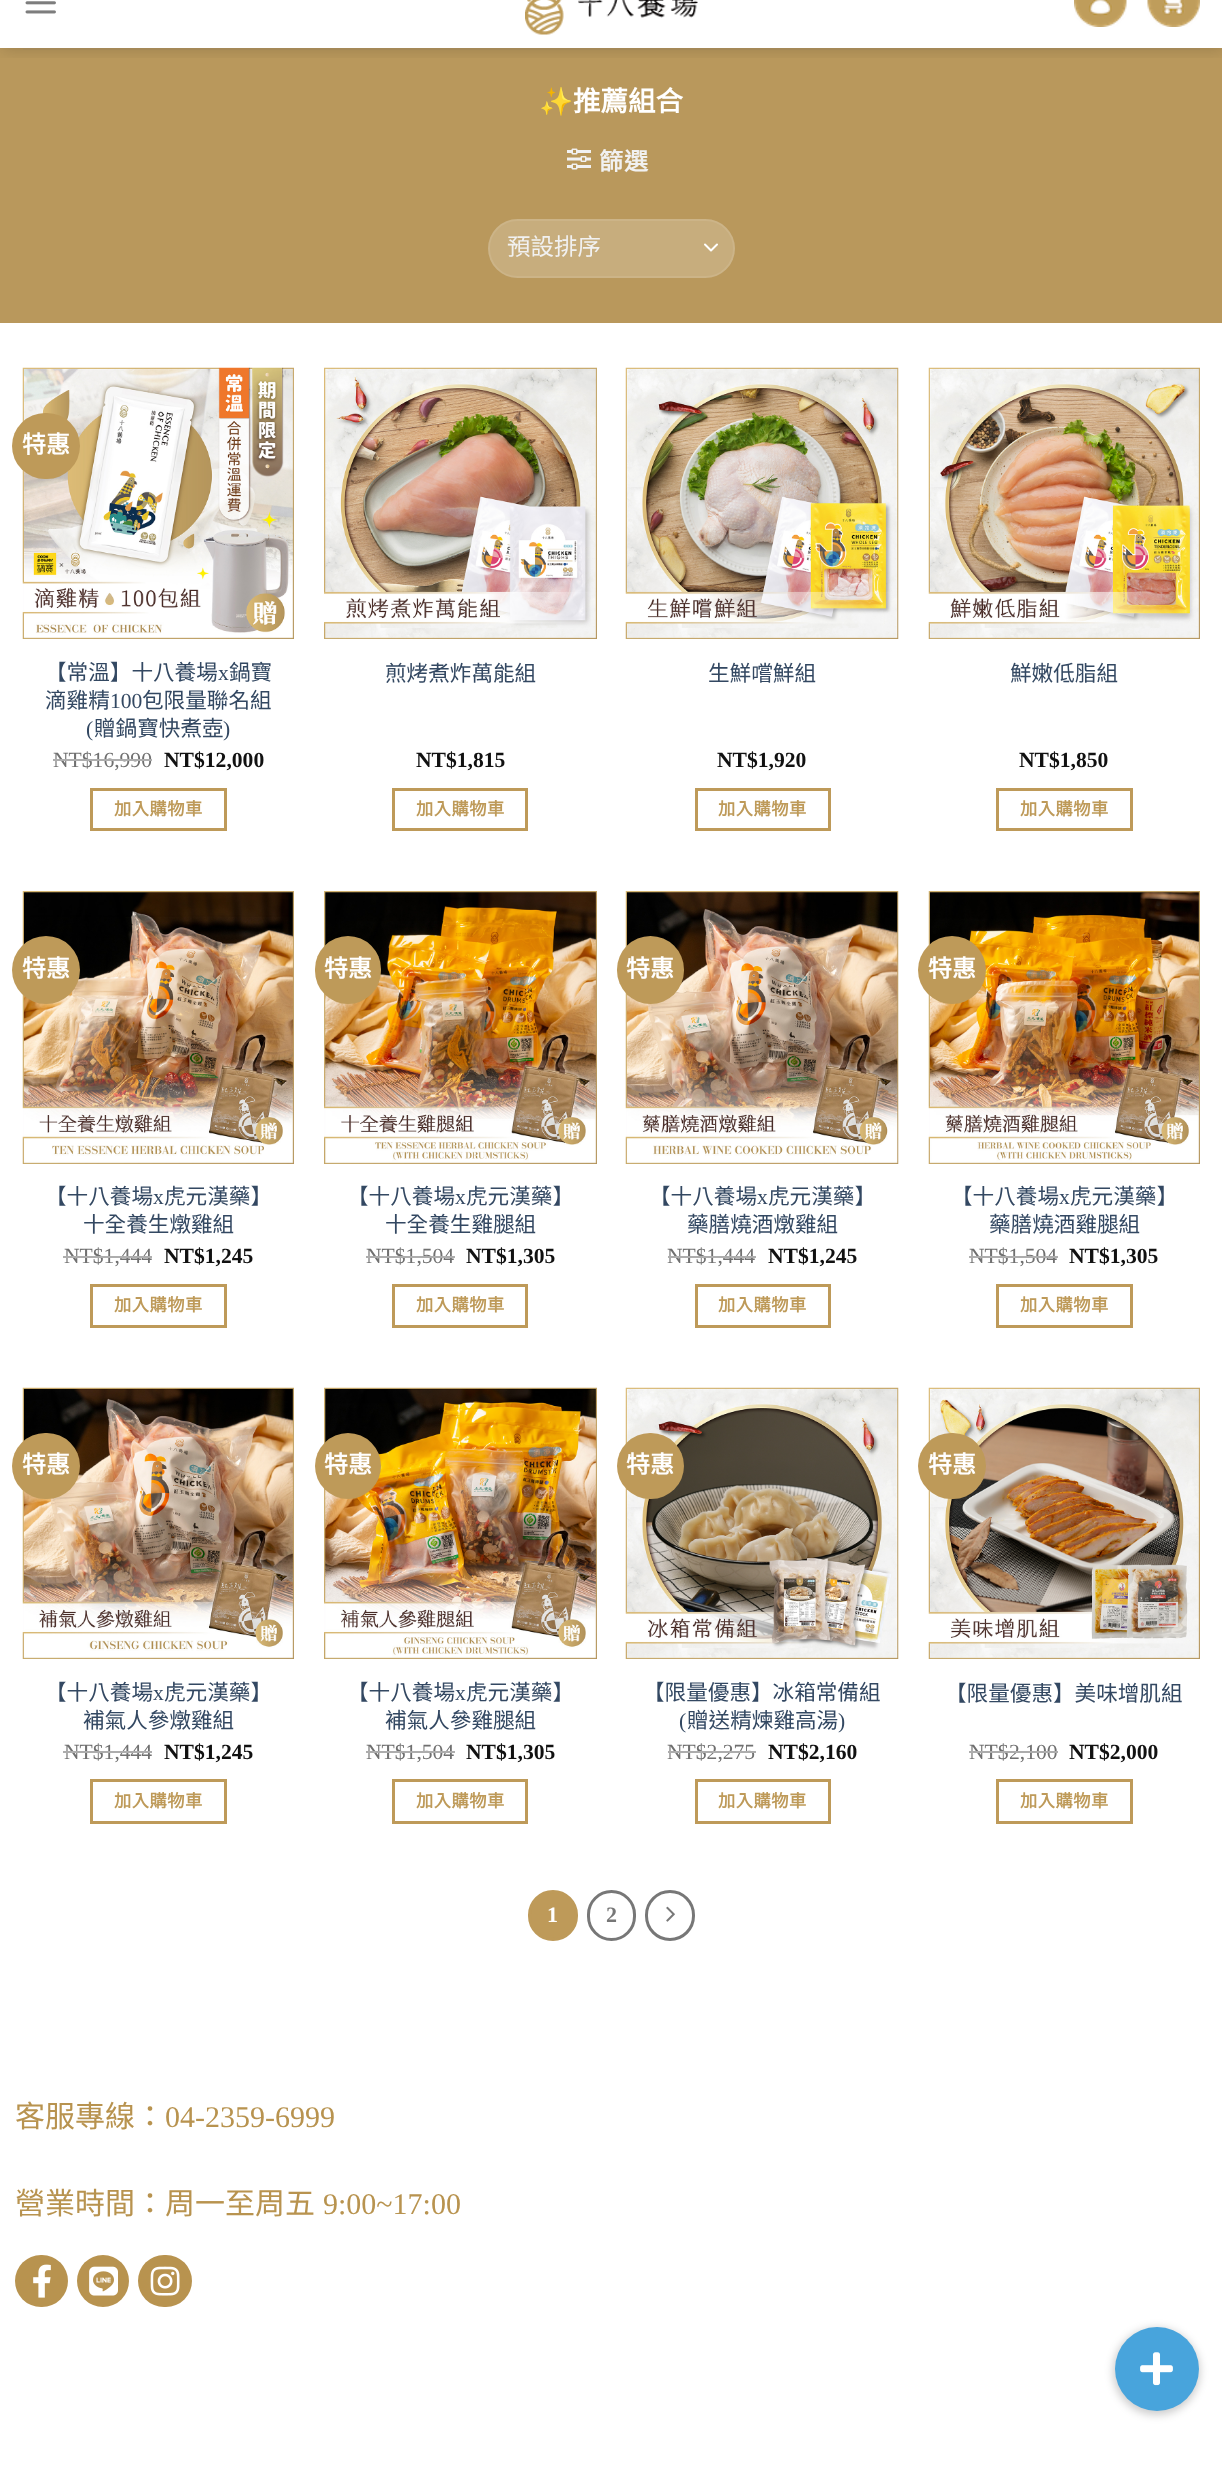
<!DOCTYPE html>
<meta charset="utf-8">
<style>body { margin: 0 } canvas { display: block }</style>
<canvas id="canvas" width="1222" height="2485"></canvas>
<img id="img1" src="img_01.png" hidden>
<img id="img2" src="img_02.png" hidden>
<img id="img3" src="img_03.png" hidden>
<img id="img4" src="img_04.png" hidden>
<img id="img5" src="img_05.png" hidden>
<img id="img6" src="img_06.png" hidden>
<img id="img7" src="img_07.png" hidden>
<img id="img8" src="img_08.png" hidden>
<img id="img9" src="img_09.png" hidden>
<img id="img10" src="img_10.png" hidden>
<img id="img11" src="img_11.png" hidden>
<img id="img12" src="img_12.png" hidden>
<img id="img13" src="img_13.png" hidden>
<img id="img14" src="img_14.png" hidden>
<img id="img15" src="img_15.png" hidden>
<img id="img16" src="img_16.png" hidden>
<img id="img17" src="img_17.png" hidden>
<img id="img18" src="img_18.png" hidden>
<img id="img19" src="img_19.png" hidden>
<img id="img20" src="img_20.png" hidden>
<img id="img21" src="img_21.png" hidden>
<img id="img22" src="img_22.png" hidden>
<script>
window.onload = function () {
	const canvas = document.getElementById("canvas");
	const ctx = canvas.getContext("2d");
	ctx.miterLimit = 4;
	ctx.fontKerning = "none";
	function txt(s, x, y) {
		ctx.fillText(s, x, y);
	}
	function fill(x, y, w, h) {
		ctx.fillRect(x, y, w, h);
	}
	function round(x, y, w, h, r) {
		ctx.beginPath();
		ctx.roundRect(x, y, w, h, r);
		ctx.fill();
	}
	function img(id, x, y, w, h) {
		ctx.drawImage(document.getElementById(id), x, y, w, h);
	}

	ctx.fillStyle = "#FFFFFF";
	fill(0, 0, 1222, 2485);
	ctx.fillStyle = "#B9985C";
	fill(0, 48, 1222, 275);
	ctx.save();
	ctx.beginPath();
	ctx.rect(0, 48, 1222, 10);
	ctx.clip();
	ctx.fillStyle = "rgba(0, 0, 0, 0.15)";
	ctx.filter = "blur(7.5px)";
	ctx.beginPath();
	ctx.rect(2, -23, 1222, 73);
	ctx.fill();
	ctx.filter = "none";
	ctx.restore();
	img("img1", 25, 1, 31, 13);
	img("img2", 525, 0, 173, 35);
	img("img3", 1074, 0, 53, 27);
	img("img4", 1147, 0, 53, 27);
	ctx.fillStyle = "#A58958";
	fill(23, 48, 1177, 2);
	img("img5", 567, 148, 24, 22);
	ctx.fillStyle = "#C7AD7D";
	round(488, 219, 247, 59, 29.5);
	ctx.beginPath();
	ctx.moveTo(705, 244.5);
	ctx.lineTo(711, 250.5);
	ctx.lineTo(717, 244.5);
	ctx.strokeStyle = "#FFFFFF";
	ctx.lineWidth = 2;
	ctx.lineCap = "round";
	ctx.lineJoin = "round";
	ctx.stroke();
	ctx.beginPath();
	ctx.roundRect(489, 220, 245, 57, 28.5);
	ctx.strokeStyle = "rgba(255, 255, 255, 0.09)";
	ctx.lineJoin = "miter";
	ctx.stroke();
	img("img6", 22, 367, 272, 272);
	ctx.fillStyle = "#BE9A59";
	round(12, 413, 68, 66, 33);
	ctx.strokeStyle = "#BE9A59";
	ctx.lineWidth = 3;
	ctx.strokeRect(91.5, 789.5, 134, 40);
	img("img7", 324, 367, 273, 272);
	ctx.strokeRect(393.5, 789.5, 133, 40);
	img("img8", 625, 367, 274, 272);
	ctx.strokeRect(696.5, 789.5, 133, 40);
	img("img9", 928, 367, 272, 272);
	ctx.strokeRect(997.5, 789.5, 134, 40);
	img("img10", 22, 891, 272, 273);
	ctx.beginPath();
	ctx.arc(46, 970, 34, 0, Math.PI * 2);
	ctx.fill();
	ctx.strokeRect(91.5, 1285.5, 134, 41);
	img("img11", 324, 891, 273, 273);
	round(315, 936, 66, 68, 33);
	ctx.strokeRect(393.5, 1285.5, 133, 41);
	img("img12", 625, 891, 274, 273);
	round(617, 936, 67, 68, 33.5);
	ctx.strokeRect(696.5, 1285.5, 133, 41);
	img("img13", 928, 891, 272, 273);
	ctx.beginPath();
	ctx.arc(952, 970, 34, 0, Math.PI * 2);
	ctx.fill();
	ctx.strokeRect(997.5, 1285.5, 134, 41);
	img("img14", 22, 1387, 272, 272);
	round(12, 1433, 68, 66, 33);
	ctx.strokeRect(91.5, 1780.5, 134, 42);
	img("img15", 324, 1387, 273, 272);
	ctx.beginPath();
	ctx.arc(348, 1466, 33, 0, Math.PI * 2);
	ctx.fill();
	ctx.strokeRect(393.5, 1780.5, 133, 42);
	img("img16", 625, 1387, 274, 272);
	round(617, 1433, 67, 66, 33);
	ctx.strokeRect(696.5, 1780.5, 133, 42);
	img("img17", 928, 1387, 272, 272);
	round(918, 1433, 68, 66, 33);
	ctx.strokeRect(997.5, 1780.5, 134, 42);
	ctx.beginPath();
	ctx.roundRect(529.5, 1891.5, 47, 48, 23.5);
	ctx.fill();
	ctx.stroke();
	ctx.beginPath();
	ctx.roundRect(588.5, 1891.5, 46, 48, 23);
	ctx.strokeStyle = "#777777";
	ctx.stroke();
	ctx.beginPath();
	ctx.roundRect(646.5, 1891.5, 47, 48, 23.5);
	ctx.stroke();
	img("img18", 666, 1906, 9, 16);
	ctx.fillStyle = "#B8934F";
	round(15, 2255, 53, 52, 26);
	img("img19", 33, 2264, 18, 34);
	ctx.beginPath();
	ctx.arc(103, 2281, 26, 0, Math.PI * 2);
	ctx.fill();
	img("img20", 89, 2266, 29, 30);
	round(138, 2255, 54, 52, 26);
	img("img21", 150, 2266, 30, 30);
	ctx.fillStyle = "rgba(0, 0, 0, 0.2)";
	ctx.filter = "blur(4.5px)";
	ctx.beginPath();
	ctx.roundRect(1113, 2328, 87, 87, 43.5);
	ctx.fill();
	ctx.filter = "none";
	ctx.fillStyle = "#48A4DC";
	ctx.beginPath();
	ctx.arc(1157, 2369, 42, 0, Math.PI * 2);
	ctx.fill();
	img("img22", 1140, 2352, 33, 34);
	ctx.font = "bold 27.5px Noto Color Emoji";
	ctx.fillStyle = "#FFFFFF";
	txt("✨", 539, 111);
	ctx.font = "bold 27.5px Noto Sans CJK TC";
	txt("推薦組合", 573, 111);
	ctx.letterSpacing = "1px";
	ctx.font = "bold 24px Noto Sans CJK TC";
	ctx.fillStyle = "#F1F1F1";
	txt("篩選", 599, 170);
	ctx.letterSpacing = "0px";
	ctx.font = "23.5px Noto Sans CJK TC";
	txt("預設排序", 507, 255);
	ctx.font = "bold 24px Noto Sans CJK TC";
	ctx.fillStyle = "#FFFFFF";
	txt("特惠", 22, 453);
	ctx.font = "21.6px Noto Sans CJK TC";
	ctx.fillStyle = "#334862";
	txt("【常溫】十八養場", 45, 680);
	ctx.font = "21.6px Liberation Serif";
	txt("x", 218, 680);
	ctx.font = "21.6px Noto Sans CJK TC";
	txt("鍋寶", 229, 680);
	txt("滴雞精", 45, 708);
	ctx.font = "21.6px Liberation Serif";
	txt("100", 110, 708);
	ctx.font = "21.6px Noto Sans CJK TC";
	txt("包限量聯名組", 142, 708);
	ctx.font = "21.6px Liberation Serif";
	txt("(", 86, 736);
	ctx.font = "21.6px Noto Sans CJK TC";
	txt("贈鍋寶快煮壺", 94, 736);
	ctx.font = "21.6px Liberation Serif";
	txt(")", 223, 736);
	ctx.fillStyle = "#707070";
	txt("NT$16,990", 53, 767);
	ctx.fillStyle = "#ADADAD";
	fill(53, 759, 99, 2);
	ctx.font = "bold 21.6px Liberation Serif";
	ctx.fillStyle = "#111111";
	txt("NT$12,000", 164, 767);
	ctx.letterSpacing = "0.5px";
	ctx.font = "bold 17.25px Noto Sans CJK TC";
	ctx.fillStyle = "#BE9A59";
	txt("加入購物車", 114, 815);
	ctx.letterSpacing = "0px";
	ctx.font = "21.6px Noto Sans CJK TC";
	ctx.fillStyle = "#334862";
	txt("煎烤煮炸萬能組", 385, 681);
	ctx.font = "bold 21.6px Liberation Serif";
	ctx.fillStyle = "#111111";
	txt("NT$1,815", 416, 767);
	ctx.letterSpacing = "0.5px";
	ctx.font = "bold 17.25px Noto Sans CJK TC";
	ctx.fillStyle = "#BE9A59";
	txt("加入購物車", 416, 815);
	ctx.letterSpacing = "0px";
	ctx.font = "21.6px Noto Sans CJK TC";
	ctx.fillStyle = "#334862";
	txt("生鮮嚐鮮組", 708, 681);
	ctx.font = "bold 21.6px Liberation Serif";
	ctx.fillStyle = "#111111";
	txt("NT$1,920", 717, 767);
	ctx.letterSpacing = "0.5px";
	ctx.font = "bold 17.25px Noto Sans CJK TC";
	ctx.fillStyle = "#BE9A59";
	txt("加入購物車", 718, 815);
	ctx.letterSpacing = "0px";
	ctx.font = "21.6px Noto Sans CJK TC";
	ctx.fillStyle = "#334862";
	txt("鮮嫩低脂組", 1010, 681);
	ctx.font = "bold 21.6px Liberation Serif";
	ctx.fillStyle = "#111111";
	txt("NT$1,850", 1019, 767);
	ctx.letterSpacing = "0.5px";
	ctx.font = "bold 17.25px Noto Sans CJK TC";
	ctx.fillStyle = "#BE9A59";
	txt("加入購物車", 1020, 815);
	ctx.letterSpacing = "0px";
	ctx.font = "bold 24px Noto Sans CJK TC";
	ctx.fillStyle = "#FFFFFF";
	txt("特惠", 22, 977);
	ctx.font = "21.6px Noto Sans CJK TC";
	ctx.fillStyle = "#334862";
	txt("【十八養場", 45, 1204);
	ctx.font = "21.6px Liberation Serif";
	txt("x", 153, 1204);
	ctx.font = "21.6px Noto Sans CJK TC";
	txt("虎元漢藥】", 164, 1204);
	txt("十全養生燉雞組", 83, 1232);
	ctx.font = "21.6px Liberation Serif";
	ctx.fillStyle = "#707070";
	txt("NT$1,444", 64, 1263);
	ctx.fillStyle = "#ADADAD";
	fill(63, 1256, 89, 2);
	ctx.font = "bold 21.6px Liberation Serif";
	ctx.fillStyle = "#111111";
	txt("NT$1,245", 164, 1263);
	ctx.letterSpacing = "0.5px";
	ctx.font = "bold 17.25px Noto Sans CJK TC";
	ctx.fillStyle = "#BE9A59";
	txt("加入購物車", 114, 1311);
	ctx.letterSpacing = "0px";
	ctx.font = "bold 24px Noto Sans CJK TC";
	ctx.fillStyle = "#FFFFFF";
	txt("特惠", 324, 977);
	ctx.font = "21.6px Noto Sans CJK TC";
	ctx.fillStyle = "#334862";
	txt("【十八養場", 347, 1204);
	ctx.font = "21.6px Liberation Serif";
	txt("x", 455, 1204);
	ctx.font = "21.6px Noto Sans CJK TC";
	txt("虎元漢藥】", 466, 1204);
	txt("十全養生雞腿組", 385, 1232);
	ctx.font = "21.6px Liberation Serif";
	ctx.fillStyle = "#707070";
	txt("NT$1,504", 366, 1263);
	ctx.fillStyle = "#ADADAD";
	fill(366, 1256, 89, 2);
	ctx.font = "bold 21.6px Liberation Serif";
	ctx.fillStyle = "#111111";
	txt("NT$1,305", 466, 1263);
	ctx.letterSpacing = "0.5px";
	ctx.font = "bold 17.25px Noto Sans CJK TC";
	ctx.fillStyle = "#BE9A59";
	txt("加入購物車", 416, 1311);
	ctx.letterSpacing = "0px";
	ctx.font = "bold 24px Noto Sans CJK TC";
	ctx.fillStyle = "#FFFFFF";
	txt("特惠", 626, 977);
	ctx.font = "21.6px Noto Sans CJK TC";
	ctx.fillStyle = "#334862";
	txt("【十八養場", 649, 1204);
	ctx.font = "21.6px Liberation Serif";
	txt("x", 757, 1204);
	ctx.font = "21.6px Noto Sans CJK TC";
	txt("虎元漢藥】", 768, 1204);
	txt("藥膳燒酒燉雞組", 687, 1232);
	ctx.font = "21.6px Liberation Serif";
	ctx.fillStyle = "#707070";
	txt("NT$1,444", 667, 1263);
	ctx.fillStyle = "#ADADAD";
	fill(668, 1256, 88, 2);
	ctx.font = "bold 21.6px Liberation Serif";
	ctx.fillStyle = "#111111";
	txt("NT$1,245", 768, 1263);
	ctx.letterSpacing = "0.5px";
	ctx.font = "bold 17.25px Noto Sans CJK TC";
	ctx.fillStyle = "#BE9A59";
	txt("加入購物車", 718, 1311);
	ctx.letterSpacing = "0px";
	ctx.font = "bold 24px Noto Sans CJK TC";
	ctx.fillStyle = "#FFFFFF";
	txt("特惠", 928, 977);
	ctx.font = "21.6px Noto Sans CJK TC";
	ctx.fillStyle = "#334862";
	txt("【十八養場", 951, 1204);
	ctx.font = "21.6px Liberation Serif";
	txt("x", 1059, 1204);
	ctx.font = "21.6px Noto Sans CJK TC";
	txt("虎元漢藥】", 1070, 1204);
	txt("藥膳燒酒雞腿組", 989, 1232);
	ctx.font = "21.6px Liberation Serif";
	ctx.fillStyle = "#707070";
	txt("NT$1,504", 969, 1263);
	ctx.fillStyle = "#ADADAD";
	fill(969, 1256, 89, 2);
	ctx.font = "bold 21.6px Liberation Serif";
	ctx.fillStyle = "#111111";
	txt("NT$1,305", 1069, 1263);
	ctx.letterSpacing = "0.5px";
	ctx.font = "bold 17.25px Noto Sans CJK TC";
	ctx.fillStyle = "#BE9A59";
	txt("加入購物車", 1020, 1311);
	ctx.letterSpacing = "0px";
	ctx.font = "bold 24px Noto Sans CJK TC";
	ctx.fillStyle = "#FFFFFF";
	txt("特惠", 22, 1473);
	ctx.font = "21.6px Noto Sans CJK TC";
	ctx.fillStyle = "#334862";
	txt("【十八養場", 45, 1700);
	ctx.font = "21.6px Liberation Serif";
	txt("x", 153, 1700);
	ctx.font = "21.6px Noto Sans CJK TC";
	txt("虎元漢藥】", 164, 1700);
	txt("補氣人參燉雞組", 83, 1728);
	ctx.font = "21.6px Liberation Serif";
	ctx.fillStyle = "#707070";
	txt("NT$1,444", 64, 1759);
	ctx.fillStyle = "#ADADAD";
	fill(63, 1751, 89, 2);
	ctx.font = "bold 21.6px Liberation Serif";
	ctx.fillStyle = "#111111";
	txt("NT$1,245", 164, 1759);
	ctx.letterSpacing = "0.5px";
	ctx.font = "bold 17.25px Noto Sans CJK TC";
	ctx.fillStyle = "#BE9A59";
	txt("加入購物車", 114, 1807);
	ctx.letterSpacing = "0px";
	ctx.font = "bold 24px Noto Sans CJK TC";
	ctx.fillStyle = "#FFFFFF";
	txt("特惠", 324, 1473);
	ctx.font = "21.6px Noto Sans CJK TC";
	ctx.fillStyle = "#334862";
	txt("【十八養場", 347, 1700);
	ctx.font = "21.6px Liberation Serif";
	txt("x", 455, 1700);
	ctx.font = "21.6px Noto Sans CJK TC";
	txt("虎元漢藥】", 466, 1700);
	txt("補氣人參雞腿組", 385, 1728);
	ctx.font = "21.6px Liberation Serif";
	ctx.fillStyle = "#707070";
	txt("NT$1,504", 366, 1759);
	ctx.fillStyle = "#ADADAD";
	fill(366, 1751, 89, 2);
	ctx.font = "bold 21.6px Liberation Serif";
	ctx.fillStyle = "#111111";
	txt("NT$1,305", 466, 1759);
	ctx.letterSpacing = "0.5px";
	ctx.font = "bold 17.25px Noto Sans CJK TC";
	ctx.fillStyle = "#BE9A59";
	txt("加入購物車", 416, 1807);
	ctx.letterSpacing = "0px";
	ctx.font = "bold 24px Noto Sans CJK TC";
	ctx.fillStyle = "#FFFFFF";
	txt("特惠", 626, 1473);
	ctx.font = "21.6px Noto Sans CJK TC";
	ctx.fillStyle = "#334862";
	txt("【限量優惠】冰箱常備組", 643, 1700);
	ctx.font = "21.6px Liberation Serif";
	txt("(", 679, 1728);
	ctx.font = "21.6px Noto Sans CJK TC";
	txt("贈送精煉雞高湯", 687, 1728);
	ctx.font = "21.6px Liberation Serif";
	txt(")", 838, 1728);
	ctx.fillStyle = "#707070";
	txt("NT$2,275", 667, 1759);
	ctx.fillStyle = "#ADADAD";
	fill(668, 1751, 88, 2);
	ctx.font = "bold 21.6px Liberation Serif";
	ctx.fillStyle = "#111111";
	txt("NT$2,160", 768, 1759);
	ctx.letterSpacing = "0.5px";
	ctx.font = "bold 17.25px Noto Sans CJK TC";
	ctx.fillStyle = "#BE9A59";
	txt("加入購物車", 718, 1807);
	ctx.letterSpacing = "0px";
	ctx.font = "bold 24px Noto Sans CJK TC";
	ctx.fillStyle = "#FFFFFF";
	txt("特惠", 928, 1473);
	ctx.font = "21.6px Noto Sans CJK TC";
	ctx.fillStyle = "#334862";
	txt("【限量優惠】美味增肌組", 945, 1701);
	ctx.font = "21.6px Liberation Serif";
	ctx.fillStyle = "#707070";
	txt("NT$", 969, 1759);
	ctx.fillStyle = "#ADADAD";
	fill(969, 1751, 41, 2);
	ctx.fillStyle = "#707070";
	txt("2,100", 1009, 1759);
	ctx.fillStyle = "#ADADAD";
	fill(1010, 1751, 48, 2);
	ctx.font = "bold 21.6px Liberation Serif";
	ctx.fillStyle = "#111111";
	txt("NT$2,000", 1069, 1759);
	ctx.letterSpacing = "0.5px";
	ctx.font = "bold 17.25px Noto Sans CJK TC";
	ctx.fillStyle = "#BE9A59";
	txt("加入購物車", 1020, 1807);
	ctx.letterSpacing = "0px";
	ctx.font = "bold 22px Liberation Serif";
	ctx.fillStyle = "#FFFFFF";
	txt("1", 547, 1922);
	ctx.fillStyle = "#777777";
	txt("2", 606, 1922);
	ctx.font = "30px Noto Sans CJK TC";
	ctx.fillStyle = "#B8934F";
	txt("客服專線：", 15, 2127);
	ctx.font = "30px Liberation Serif";
	txt("04-2359-6999", 165, 2127);
	ctx.font = "30px Noto Sans CJK TC";
	txt("營業時間：周一至周五", 15, 2214);
	ctx.font = "30px Liberation Serif";
	txt("9:00~17:00", 323, 2214);
};
</script>
